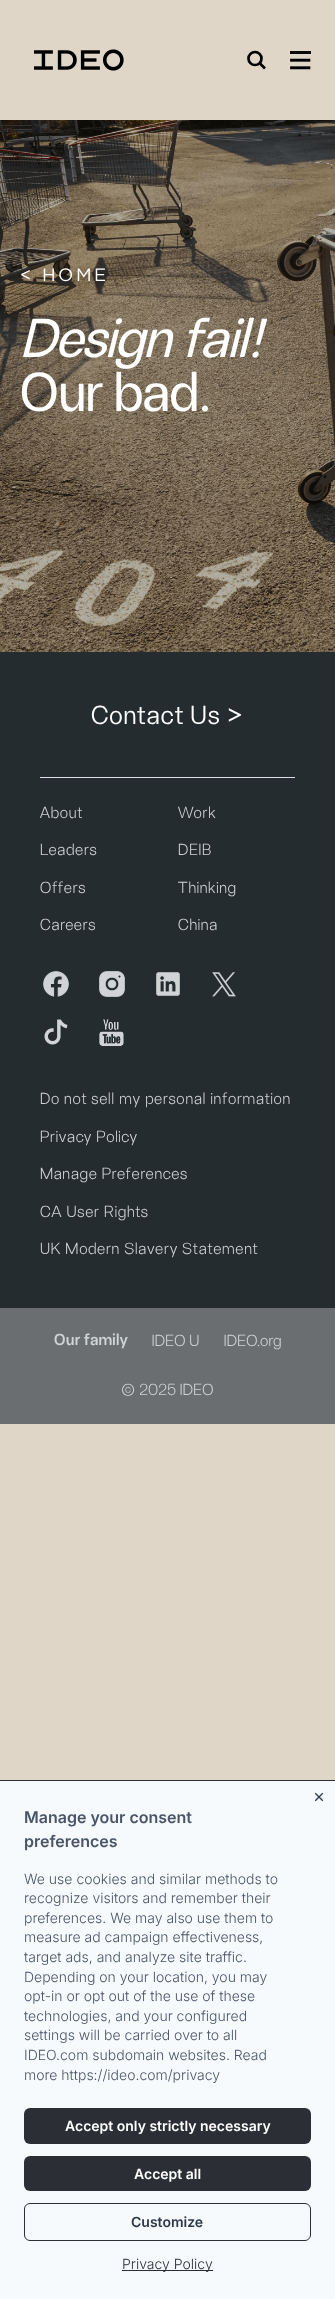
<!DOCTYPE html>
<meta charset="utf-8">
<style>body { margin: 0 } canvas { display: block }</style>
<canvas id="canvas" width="335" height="2299"></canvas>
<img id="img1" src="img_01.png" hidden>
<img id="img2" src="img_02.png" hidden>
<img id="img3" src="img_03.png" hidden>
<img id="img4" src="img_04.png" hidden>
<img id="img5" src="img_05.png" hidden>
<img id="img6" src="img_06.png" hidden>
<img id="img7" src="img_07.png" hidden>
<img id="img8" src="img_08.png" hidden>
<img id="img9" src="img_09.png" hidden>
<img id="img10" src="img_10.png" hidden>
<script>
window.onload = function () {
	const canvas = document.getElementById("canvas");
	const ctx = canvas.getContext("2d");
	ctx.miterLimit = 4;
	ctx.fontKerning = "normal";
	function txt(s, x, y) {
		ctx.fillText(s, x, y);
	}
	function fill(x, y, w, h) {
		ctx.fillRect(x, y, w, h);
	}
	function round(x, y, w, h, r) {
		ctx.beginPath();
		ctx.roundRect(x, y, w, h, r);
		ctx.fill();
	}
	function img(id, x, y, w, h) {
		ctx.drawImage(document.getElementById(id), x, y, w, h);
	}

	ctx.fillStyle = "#DFD6C7";
	fill(0, 0, 335, 2299);
	img("img1", 34, 49, 90, 22);
	ctx.beginPath();
	ctx.arc(255, 58.5, 6.5, 0, Math.PI * 2);
	ctx.strokeStyle = "#000000";
	ctx.lineWidth = 2.7;
	ctx.stroke();
	ctx.beginPath();
	ctx.moveTo(260, 63.5);
	ctx.lineTo(265, 68.5);
	ctx.stroke();
	img("img2", 290, 51, 21, 19);
	img("img3", 0, 120, 335, 532);
	ctx.fillStyle = "#252C30";
	fill(0, 652, 335, 656);
	ctx.fillStyle = "#DDE1E7";
	fill(40, 777, 255, 1);
	img("img4", 43, 971, 26, 26);
	img("img5", 99, 971, 26, 26);
	img("img6", 156, 972, 24, 24);
	img("img7", 212, 972, 24, 25);
	img("img8", 44, 1019, 24, 26);
	img("img9", 99, 1019, 25, 27);
	ctx.fillStyle = "#6A6E71";
	fill(0, 1308, 335, 116);
	ctx.fillStyle = "#F7FAFC";
	fill(0, 1781, 335, 518);
	ctx.fillStyle = "#2B2E35";
	fill(0, 1780, 335, 1);
	img("img10", 314, 1792, 10, 10);
	round(24, 2108, 287, 36, 6);
	round(24, 2156, 287, 35, 6);
	ctx.beginPath();
	ctx.roundRect(24.5, 2203.5, 286, 37, 5.5);
	ctx.strokeStyle = "#2B2E35";
	ctx.lineWidth = 1;
	ctx.stroke();
	fill(122, 2270, 91, 1);
	ctx.letterSpacing = "2.5px";
	ctx.font = "18px Gotham";
	ctx.fillStyle = "#FFFFFF";
	txt("< HOME", 20, 281);
	ctx.letterSpacing = "0px";
	ctx.font = "italic 500 54.5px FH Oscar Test";
	txt("Design fail!", 20, 357);
	ctx.font = "500 54.5px FH Oscar Test";
	txt("Our bad.", 20, 411);
	ctx.letterSpacing = "1.25px";
	ctx.font = "26px FH Oscar Test";
	txt("Contact Us >", 91, 724);
	ctx.letterSpacing = "1px";
	ctx.font = "300 16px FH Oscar";
	ctx.fillStyle = "#D0D4D6";
	txt("About", 40, 818);
	txt("Work", 178, 818);
	txt("Leaders", 40, 855);
	txt("DEIB", 178, 855);
	txt("Offers", 40, 893);
	txt("Thinking", 178, 893);
	txt("Careers", 40, 930);
	txt("China", 178, 930);
	txt("Do not sell my personal information", 40, 1104);
	txt("Privacy Policy", 40, 1142);
	txt("Manage Preferences", 40, 1179);
	txt("CA User Rights", 40, 1217);
	txt("UK Modern Slavery Statement", 40, 1254);
	ctx.letterSpacing = "0.4px";
	ctx.font = "bold 16px FH Oscar";
	txt("Our family", 54, 1345);
	ctx.font = "300 16px FH Oscar";
	txt("IDEO U", 152, 1346);
	txt("IDEO.org", 224, 1346);
	txt("© 2025 IDEO", 121, 1395);
	ctx.letterSpacing = "0px";
	ctx.font = "600 16px Inter";
	ctx.fillStyle = "#4A5568";
	txt("Manage your consent", 24, 1823);
	txt("preferences", 24, 1847);
	ctx.font = "300 14px Inter";
	txt("We use cookies and similar methods to", 24, 1884);
	txt("recognize visitors and remember their", 24, 1903);
	txt("preferences. We may also use them to", 24, 1923);
	txt("measure ad campaign effectiveness,", 24, 1942);
	txt("target ads, and analyze site traffic.", 24, 1962);
	txt("Depending on your location, you may", 24, 1982);
	txt("opt-in or opt out of the use of these", 24, 2001);
	txt("technologies, and your configured", 24, 2021);
	txt("settings will be carried over to all", 24, 2040);
	txt("IDEO.com subdomain websites. Read", 24, 2060);
	txt("more https://ideo.com/privacy", 24, 2080);
	ctx.font = "600 14px Inter";
	ctx.fillStyle = "#FFFFFF";
	txt("Accept only strictly necessary", 65, 2131);
	txt("Accept all", 134, 2179);
	ctx.fillStyle = "#2D3748";
	txt("Customize", 131, 2227);
	ctx.font = "300 14px Inter";
	ctx.fillStyle = "#2B2E35";
	txt("Privacy Policy", 122, 2269);
};
</script>
